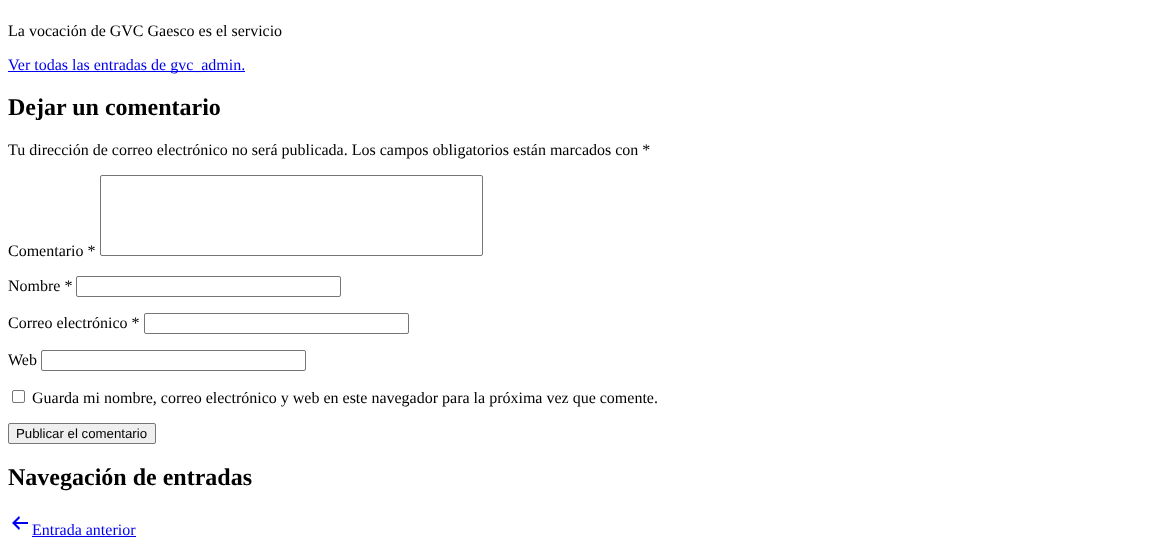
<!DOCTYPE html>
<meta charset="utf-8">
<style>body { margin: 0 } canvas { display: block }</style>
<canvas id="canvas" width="1169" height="556"></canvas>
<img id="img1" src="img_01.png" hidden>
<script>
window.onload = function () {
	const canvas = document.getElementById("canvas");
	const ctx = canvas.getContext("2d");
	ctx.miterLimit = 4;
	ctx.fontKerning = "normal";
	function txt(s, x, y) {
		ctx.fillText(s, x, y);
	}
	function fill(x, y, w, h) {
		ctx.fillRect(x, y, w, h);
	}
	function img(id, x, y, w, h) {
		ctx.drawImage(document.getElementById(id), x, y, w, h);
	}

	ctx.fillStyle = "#FFFFFF";
	fill(0, 0, 1169, 556);
	ctx.fillStyle = "#0000EE";
	fill(8, 71, 237, 1);
	ctx.beginPath();
	ctx.roundRect(100.5, 175.5, 382, 80, 1.5);
	ctx.strokeStyle = "#767676";
	ctx.stroke();
	ctx.beginPath();
	ctx.roundRect(76.5, 276.5, 264, 20, 1.5);
	ctx.stroke();
	ctx.beginPath();
	ctx.roundRect(144.5, 313.5, 264, 20, 1.5);
	ctx.stroke();
	ctx.beginPath();
	ctx.roundRect(41.5, 350.5, 264, 20, 1.5);
	ctx.stroke();
	ctx.beginPath();
	ctx.roundRect(12.5, 390.5, 12, 12, 1.5);
	ctx.stroke();
	ctx.fillStyle = "#EFEFEF";
	ctx.beginPath();
	ctx.roundRect(8.5, 423.5, 147, 20, 1.5);
	ctx.fill();
	ctx.stroke();
	img("img1", 12, 516, 16, 14);
	ctx.fillStyle = "#0000EE";
	fill(32, 536, 104, 1);
	ctx.font = "16px Liberation Serif";
	ctx.fillStyle = "#000000";
	txt("La vocación de GVC Gaesco es el servicio", 8, 36);
	ctx.fillStyle = "#0000EE";
	txt("Ver todas las entradas de gvc_admin.", 8, 70);
	ctx.font = "bold 24px Liberation Serif";
	ctx.fillStyle = "#000000";
	txt("Dejar un comentario", 8, 115);
	ctx.font = "16px Liberation Serif";
	txt("Tu dirección de correo electrónico no será publicada. Los campos obligatorios están marcados con *", 8, 155);
	txt("Comentario *", 8, 256);
	txt("Nombre *", 8, 291);
	txt("Correo electrónico *", 8, 328);
	txt("Web", 8, 365);
	txt("Guarda mi nombre, correo electrónico y web en este navegador para la próxima vez que comente.", 32, 403);
	ctx.font = "13.25px Liberation Sans";
	txt("Publicar el comentario", 16, 438);
	ctx.font = "bold 24px Liberation Serif";
	txt("Navegación de entradas", 8, 485);
	ctx.font = "16px Liberation Serif";
	ctx.fillStyle = "#0000EE";
	txt("Entrada anterior", 32, 535);
};
</script>
